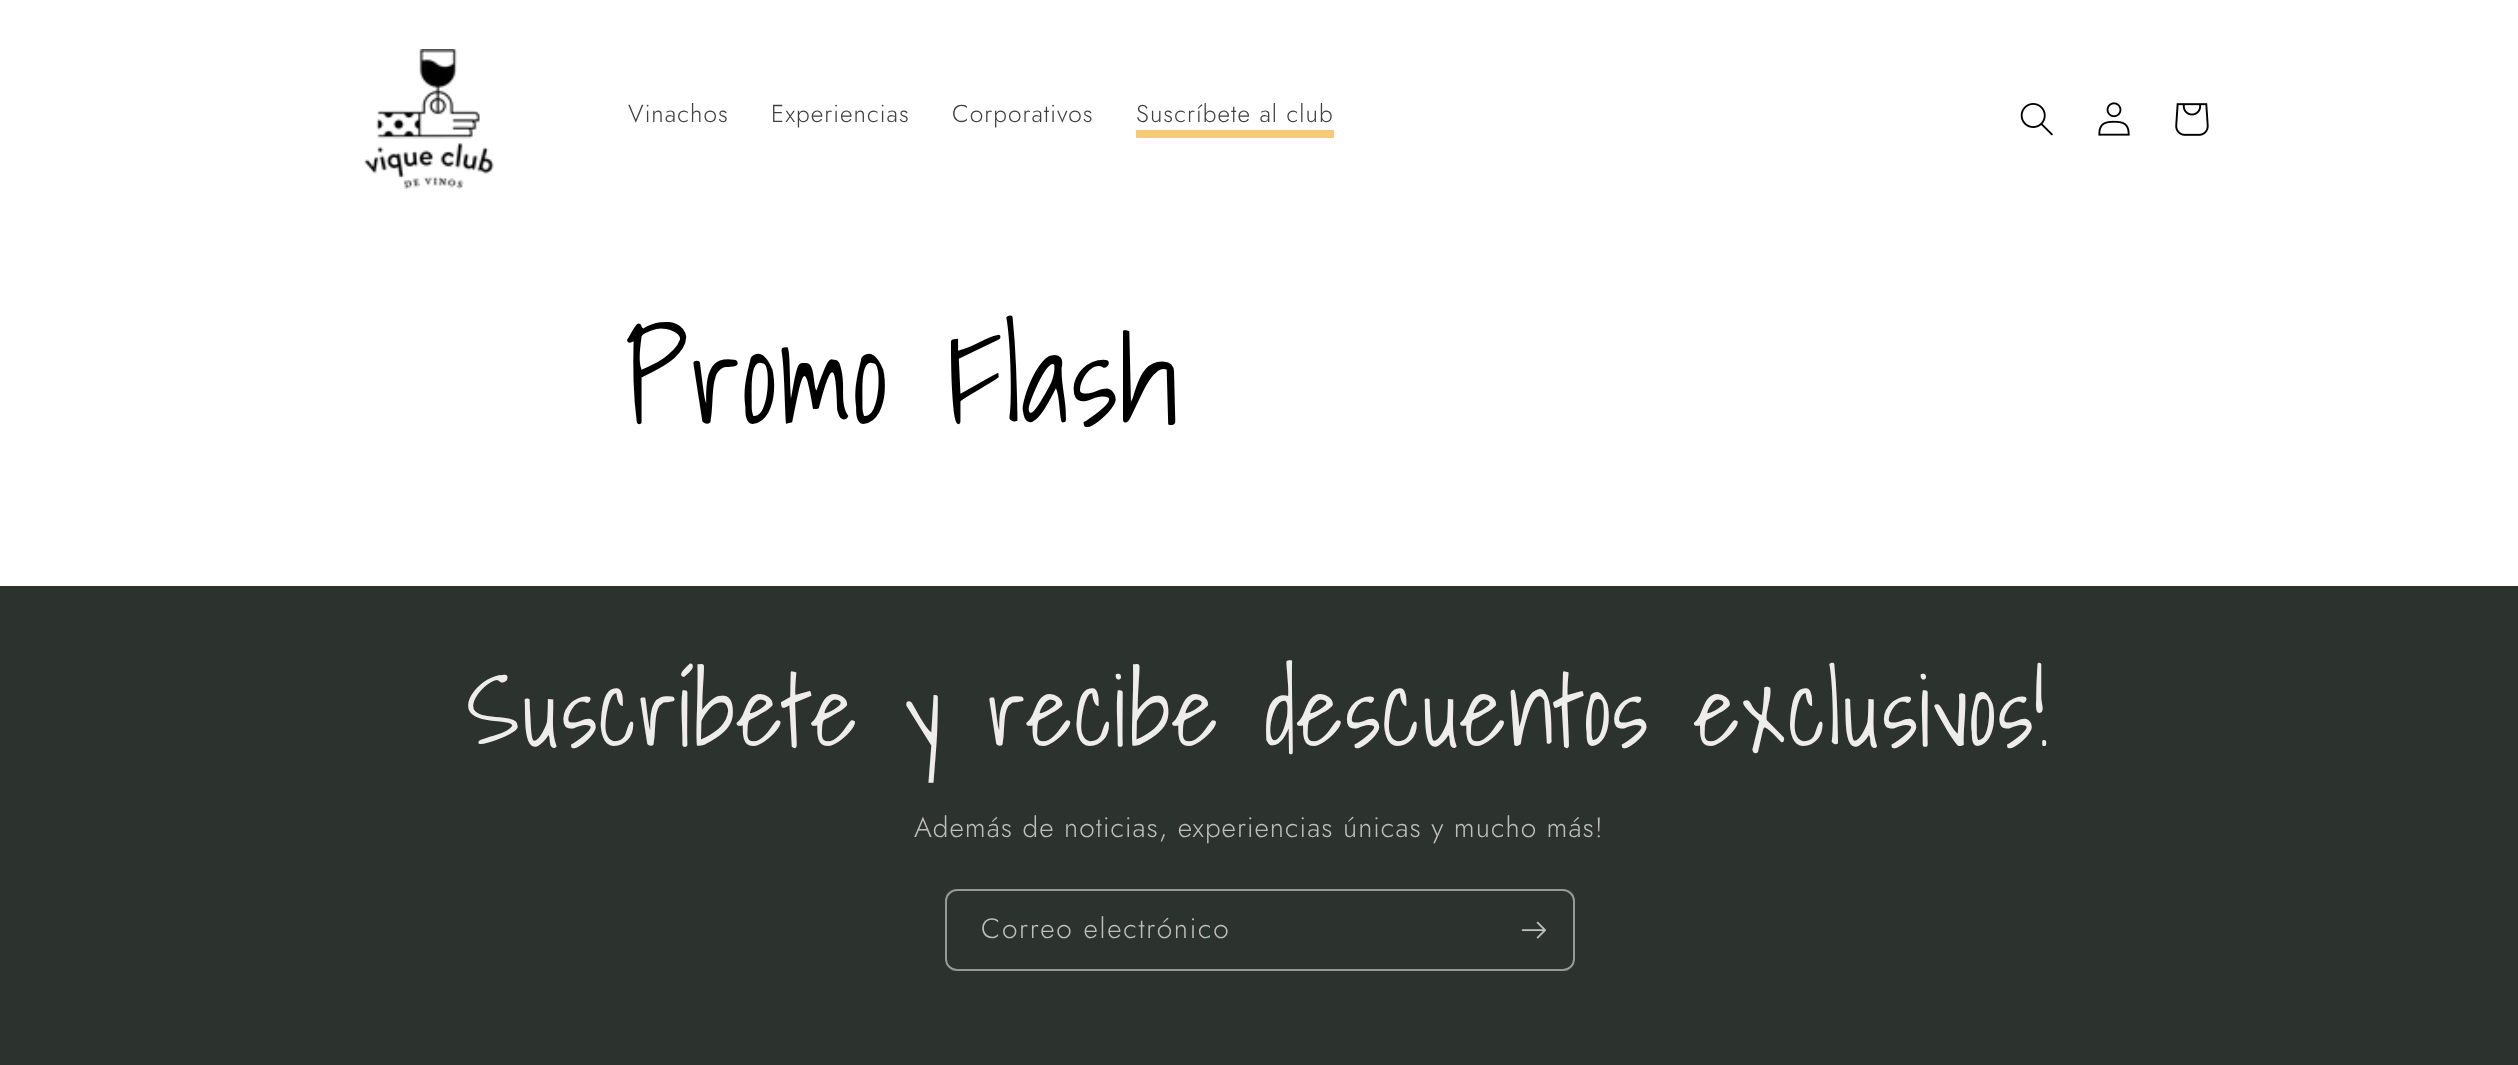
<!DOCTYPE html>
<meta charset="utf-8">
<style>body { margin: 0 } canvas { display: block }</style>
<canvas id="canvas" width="2518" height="1065"></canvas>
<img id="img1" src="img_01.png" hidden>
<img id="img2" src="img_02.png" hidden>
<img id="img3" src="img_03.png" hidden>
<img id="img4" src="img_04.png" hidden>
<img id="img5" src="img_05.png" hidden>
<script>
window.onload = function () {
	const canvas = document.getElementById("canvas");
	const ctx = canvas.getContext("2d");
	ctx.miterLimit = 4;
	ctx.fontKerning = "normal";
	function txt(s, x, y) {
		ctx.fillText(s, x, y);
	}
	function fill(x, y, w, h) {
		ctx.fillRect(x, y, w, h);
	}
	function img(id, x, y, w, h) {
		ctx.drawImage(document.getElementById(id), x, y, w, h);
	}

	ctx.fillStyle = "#FFFFFF";
	fill(0, 0, 2518, 1065);
	img("img1", 363, 49, 131, 140);
	ctx.fillStyle = "#F9C979";
	fill(1136, 130, 198, 8);
	img("img2", 2020, 103, 33, 33);
	img("img3", 2098, 102, 32, 34);
	img("img4", 2175, 103, 34, 33);
	ctx.fillStyle = "#2C332F";
	fill(0, 586, 2518, 479);
	ctx.beginPath();
	ctx.roundRect(946, 890, 628, 80, 11);
	ctx.strokeStyle = "#979997";
	ctx.lineWidth = 2;
	ctx.stroke();
	img("img5", 1521, 921, 25, 18);
	ctx.letterSpacing = "1.05px";
	ctx.font = "300 24.5px Jost";
	ctx.fillStyle = "#404040";
	txt("Vinachos", 628, 122);
	txt("Experiencias", 771, 122);
	txt("Corporativos", 952, 122);
	txt("Suscríbete al club", 1136, 122);
	ctx.letterSpacing = "1.45px";
	ctx.font = "127.5px Shadows Into Light";
	ctx.fillStyle = "#000000";
	txt("Promo Flash", 624, 424);
	ctx.font = "98px Shadows Into Light";
	ctx.fillStyle = "#EFECEC";
	txt("Suscríbete y recibe descuentos exclusivos!", 467, 746);
	ctx.letterSpacing = "1.05px";
	ctx.font = "300 28px Jost";
	ctx.fillStyle = "#BEBEBD";
	txt("Además de noticias, experiencias únicas y mucho más!", 914, 837);
	ctx.letterSpacing = "1.75px";
	txt("Correo electrónico", 981, 938);
};
</script>
